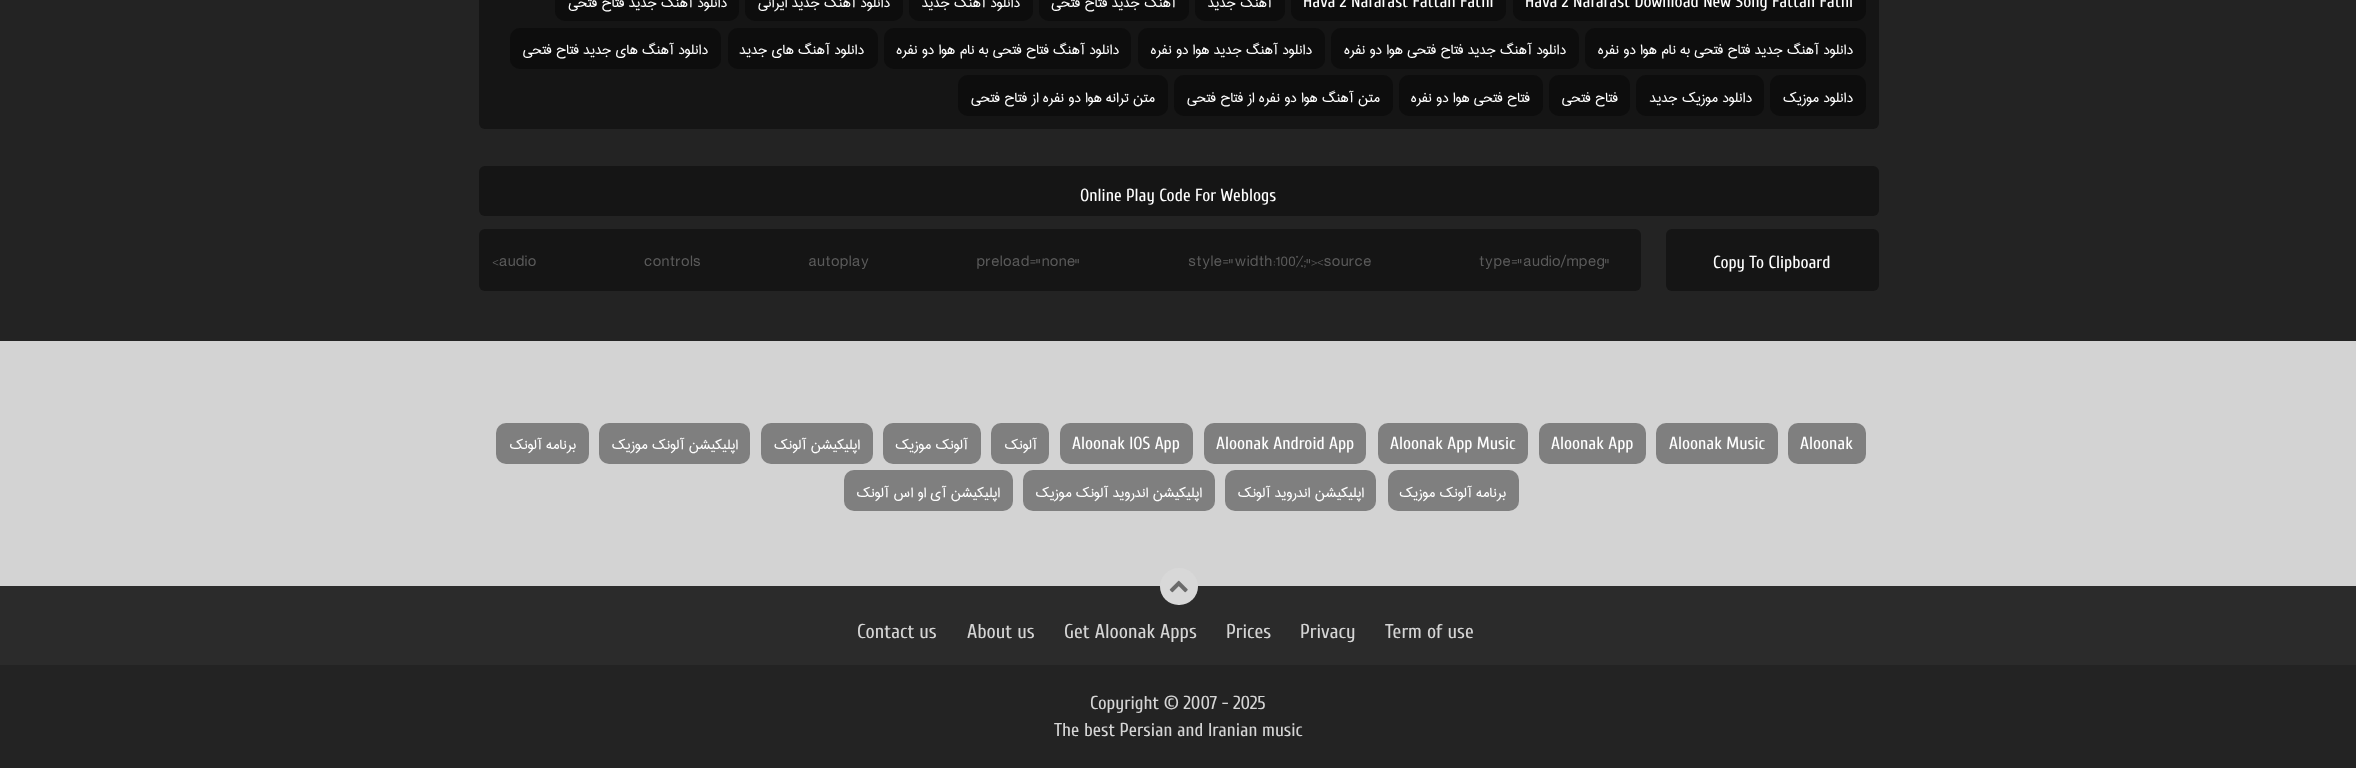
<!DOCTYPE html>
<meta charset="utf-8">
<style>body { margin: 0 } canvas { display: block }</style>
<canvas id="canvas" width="2356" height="768"></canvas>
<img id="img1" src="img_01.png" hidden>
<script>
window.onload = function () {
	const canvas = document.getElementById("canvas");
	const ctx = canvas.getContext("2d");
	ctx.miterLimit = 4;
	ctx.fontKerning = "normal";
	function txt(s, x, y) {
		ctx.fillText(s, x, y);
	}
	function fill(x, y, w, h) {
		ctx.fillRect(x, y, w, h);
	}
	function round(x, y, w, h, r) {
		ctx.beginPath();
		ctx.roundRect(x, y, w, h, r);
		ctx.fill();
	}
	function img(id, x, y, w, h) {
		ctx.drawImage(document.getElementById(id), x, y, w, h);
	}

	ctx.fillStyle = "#232323";
	fill(0, 0, 2356, 768);
	ctx.fillStyle = "#151515";
	round(479, -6, 1400, 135, 6);
	ctx.fillStyle = "#0D0D0D";
	round(1513, -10, 353, 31, 10);
	round(1291, -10, 215, 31, 10);
	round(1195, -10, 90, 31, 10);
	round(1039, -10, 150, 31, 10);
	round(909, -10, 124, 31, 10);
	round(745, -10, 158, 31, 10);
	round(555, -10, 184, 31, 10);
	round(1585, 28, 281, 41, 10);
	round(1331, 28, 248, 41, 10);
	round(1138, 28, 187, 41, 10);
	round(884, 28, 247, 41, 10);
	round(728, 28, 150, 41, 10);
	round(510, 28, 211, 41, 10);
	round(1770, 75, 96, 41, 10);
	round(1636, 75, 128, 41, 10);
	round(1549, 75, 81, 41, 10);
	round(1399, 75, 144, 41, 10);
	round(1174, 75, 219, 41, 10);
	round(958, 75, 210, 41, 10);
	ctx.fillStyle = "#151515";
	round(479, 166, 1400, 50, 6);
	round(1666, 229, 213, 62, 6);
	round(479, 229, 1162, 62, 6);
	ctx.fillStyle = "#D3D3D3";
	fill(0, 341, 2356, 245);
	ctx.fillStyle = "#7F7F7F";
	round(1788, 423, 78, 41, 10);
	round(1656, 423, 122, 41, 10);
	round(1539, 423, 107, 41, 10);
	round(1378, 423, 150, 41, 10);
	round(1204, 423, 162, 41, 10);
	round(1060, 423, 133, 41, 10);
	round(991, 423, 58, 41, 10);
	round(883, 423, 98, 41, 10);
	round(761, 423, 112, 41, 10);
	round(599, 423, 151, 41, 10);
	round(496, 423, 93, 41, 10);
	round(1388, 470, 131, 41, 10);
	round(1225, 470, 151, 41, 10);
	round(1023, 470, 192, 41, 10);
	round(844, 470, 169, 41, 10);
	ctx.fillStyle = "#2B2B2B";
	fill(0, 586, 2356, 79);
	ctx.fillStyle = "#D8D8D8";
	round(1160, 568, 38, 37, 18.5);
	img("img1", 1169, 580, 19, 13);
	ctx.font = "17.5px Cuprum";
	ctx.fillStyle = "#FFFFFF";
	txt("Hava 2 Nafarast Download New Song Fattah Fathi", 1525, 7);
	txt("Hava 2 Nafarast Fattah Fathi", 1303, 7);
	ctx.direction = "rtl";
	ctx.font = "17.5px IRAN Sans";
	txt("آهنگ جدید", 1272, 7);
	txt("آهنگ جدید فتاح فتحی", 1176, 7);
	txt("دانلود آهنگ جدید", 1020, 7);
	txt("دانلود آهنگ جدید ایرانی", 890, 7);
	txt("دانلود آهنگ جدید فتاح فتحی", 727, 7);
	txt("دانلود آهنگ جدید فتاح فتحی به نام هوا دو نفره", 1853, 54);
	txt("دانلود آهنگ جدید فتاح فتحی هوا دو نفره", 1566, 54);
	txt("دانلود آهنگ جدید هوا دو نفره", 1312, 54);
	txt("دانلود آهنگ فتاح فتحی به نام هوا دو نفره", 1119, 54);
	txt("دانلود آهنگ های جدید", 864, 54);
	txt("دانلود آهنگ های جدید فتاح فتحی", 708, 54);
	txt("دانلود موزیک", 1853, 102);
	txt("دانلود موزیک جدید", 1752, 102);
	txt("فتاح فتحی", 1618, 102);
	txt("فتاح فتحی هوا دو نفره", 1530, 102);
	txt("متن آهنگ هوا دو نفره از فتاح فتحی", 1380, 102);
	txt("متن ترانه هوا دو نفره از فتاح فتحی", 1155, 102);
	ctx.direction = "ltr";
	ctx.font = "17.5px Cuprum";
	txt("Online Play Code For Weblogs", 1080, 201);
	txt("Copy To Clipboard", 1713, 268);
	ctx.wordSpacing = "103px";
	ctx.font = "17.5px IRAN Sans";
	ctx.fillStyle = "#5B5B5B";
	txt("<audio controls autoplay preload=\"none\" style=\"width:100%;\"><source type=\"audio/mpeg\"", 493, 266);
	ctx.wordSpacing = "0px";
	ctx.font = "17.5px Cuprum";
	ctx.fillStyle = "#FFFFFF";
	txt("Aloonak", 1800, 449);
	txt("Aloonak Music", 1669, 449);
	txt("Aloonak App", 1551, 449);
	txt("Aloonak App Music", 1390, 449);
	txt("Aloonak Android App", 1216, 449);
	txt("Aloonak IOS App", 1072, 449);
	ctx.direction = "rtl";
	ctx.font = "17.5px IRAN Sans";
	txt("آلونک", 1037, 449);
	txt("آلونک موزیک", 968, 449);
	txt("اپلیکیشن آلونک", 860, 449);
	txt("اپلیکیشن آلونک موزیک", 738, 449);
	txt("برنامه آلونک", 576, 449);
	txt("برنامه آلونک موزیک", 1506, 497);
	txt("اپلیکیشن اندروید آلونک", 1364, 497);
	txt("اپلیکیشن اندروید آلونک موزیک", 1202, 497);
	txt("اپلیکیشن آی او اس آلونک", 1000, 497);
	ctx.direction = "ltr";
	ctx.font = "20px Cuprum";
	ctx.fillStyle = "#D5D5D5";
	txt("Term of use", 1385, 638);
	txt("Privacy", 1300, 638);
	txt("Prices", 1226, 638);
	txt("Get Aloonak Apps", 1064, 638);
	txt("About us", 967, 638);
	txt("Contact us", 857, 638);
	ctx.font = "18.75px Cuprum";
	txt("Copyright © 2007 - 2025", 1090, 709);
	txt("The best Persian and Iranian music", 1054, 736);
};
</script>
